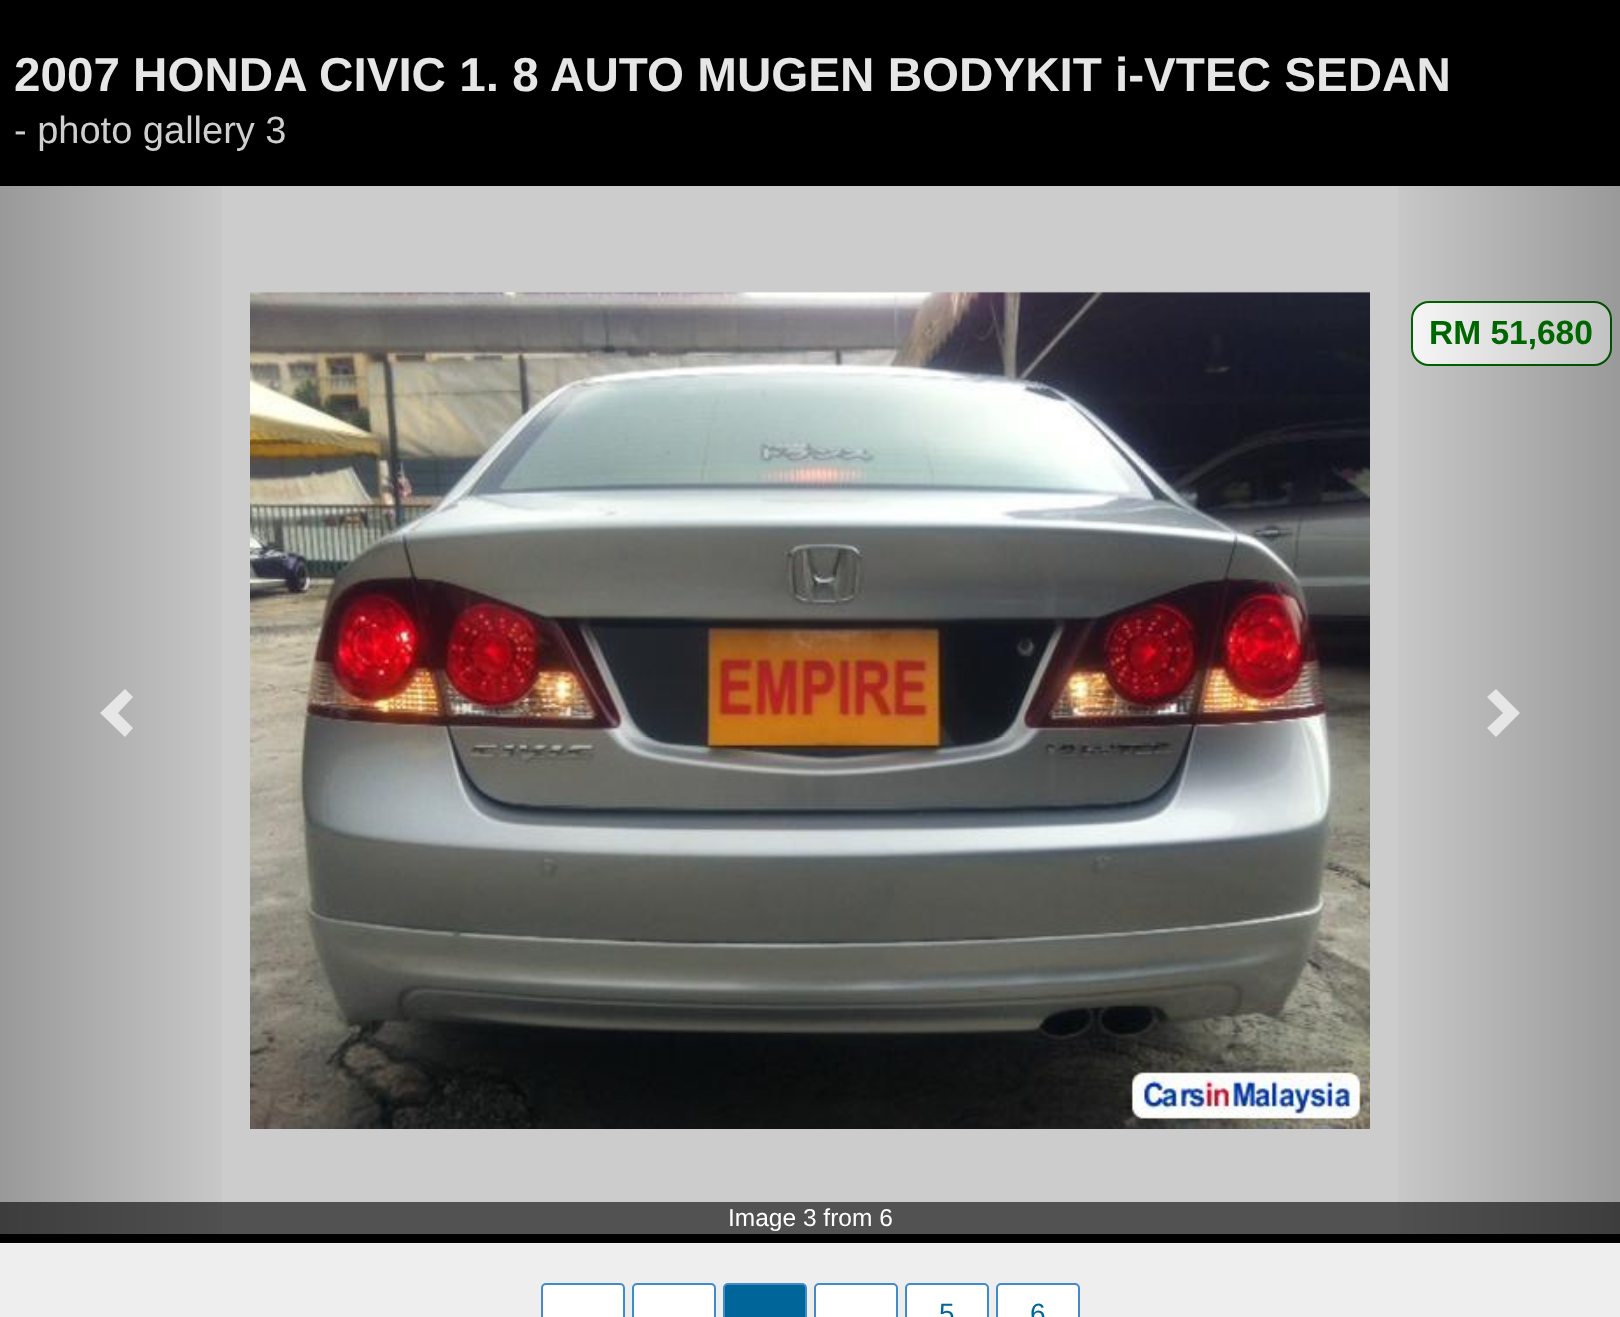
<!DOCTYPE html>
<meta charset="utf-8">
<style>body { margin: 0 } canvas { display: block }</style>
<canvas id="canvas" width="1620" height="1317"></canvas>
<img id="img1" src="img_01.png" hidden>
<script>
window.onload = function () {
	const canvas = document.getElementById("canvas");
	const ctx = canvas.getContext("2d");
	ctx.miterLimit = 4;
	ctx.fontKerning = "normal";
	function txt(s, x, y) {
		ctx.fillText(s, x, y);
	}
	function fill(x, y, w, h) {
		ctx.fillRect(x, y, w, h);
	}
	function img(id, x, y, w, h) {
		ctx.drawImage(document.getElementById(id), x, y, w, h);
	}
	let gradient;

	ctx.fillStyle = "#000000";
	fill(0, 0, 1620, 1317);
	ctx.fillStyle = "#CCCCCC";
	fill(0, 186, 1620, 1048);
	gradient = ctx.createLinearGradient(0, 711, 243, 711);
	gradient.addColorStop(0, "rgba(0, 0, 0, 0.25)");
	gradient.addColorStop(1, "rgba(0, 0, 0, 0)");
	ctx.fillStyle = gradient;
	fill(0, 186, 222, 1048);
	ctx.fillStyle = "#E6E6E6";
	ctx.beginPath();
	ctx.moveTo(133, 697);
	ctx.lineTo(118, 713);
	ctx.lineTo(133, 728);
	ctx.lineTo(125, 737);
	ctx.lineTo(100, 713);
	ctx.lineTo(125, 689);
	ctx.closePath();
	ctx.fill();
	ctx.fillStyle = "#FFFFFF";
	ctx.beginPath();
	ctx.roundRect(1412, 302, 199, 63, 17);
	ctx.fill();
	ctx.strokeStyle = "#006600";
	ctx.lineWidth = 2;
	ctx.stroke();
	gradient = ctx.createLinearGradient(1377, 711, 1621, 711);
	gradient.addColorStop(0, "rgba(0, 0, 0, 0)");
	gradient.addColorStop(1, "rgba(0, 0, 0, 0.25)");
	ctx.fillStyle = gradient;
	fill(1398, 186, 222, 1048);
	ctx.fillStyle = "#E6E6E6";
	ctx.beginPath();
	ctx.moveTo(1520, 713);
	ctx.lineTo(1496, 737);
	ctx.lineTo(1487, 728);
	ctx.lineTo(1503, 713);
	ctx.lineTo(1487, 697);
	ctx.lineTo(1496, 689);
	ctx.closePath();
	ctx.fill();
	img("img1", 250, 291, 1120, 838);
	ctx.fillStyle = "rgba(0, 0, 0, 0.6)";
	fill(0, 1202, 1620, 32);
	ctx.fillStyle = "#EEEEEE";
	fill(0, 1243, 1620, 74);
	ctx.fillStyle = "#FFFFFF";
	ctx.beginPath();
	ctx.roundRect(542, 1284, 82, 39, 4);
	ctx.fill();
	ctx.strokeStyle = "#428BCA";
	ctx.stroke();
	ctx.beginPath();
	ctx.roundRect(633, 1284, 82, 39, 4);
	ctx.fill();
	ctx.stroke();
	ctx.fillStyle = "#006699";
	ctx.beginPath();
	ctx.roundRect(724, 1284, 82, 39, 4);
	ctx.fill();
	ctx.stroke();
	ctx.fillStyle = "#FFFFFF";
	ctx.beginPath();
	ctx.roundRect(815, 1284, 82, 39, 4);
	ctx.fill();
	ctx.stroke();
	ctx.beginPath();
	ctx.roundRect(906, 1284, 82, 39, 4);
	ctx.fill();
	ctx.stroke();
	ctx.beginPath();
	ctx.roundRect(997, 1284, 82, 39, 4);
	ctx.fill();
	ctx.stroke();
	ctx.font = "bold 47.6px Liberation Sans";
	ctx.fillStyle = "#E6E6E6";
	txt("2007 HONDA CIVIC 1. 8 AUTO MUGEN BODYKIT i-VTEC SEDAN", 14, 91);
	ctx.font = "38px Liberation Sans";
	ctx.fillStyle = "#CFCFCF";
	txt("- photo gallery 3", 14, 143);
	ctx.font = "bold 33.5px Liberation Sans";
	ctx.fillStyle = "#006600";
	txt("RM 51,680", 1429, 344);
	ctx.font = "24.5px Liberation Sans";
	ctx.fillStyle = "#FFFFFF";
	txt("Image 3 from 6", 728, 1226);
	ctx.font = "28px Liberation Sans";
	ctx.fillStyle = "#006699";
	txt("5", 939, 1323);
	txt("6", 1030, 1323);
};
</script>
